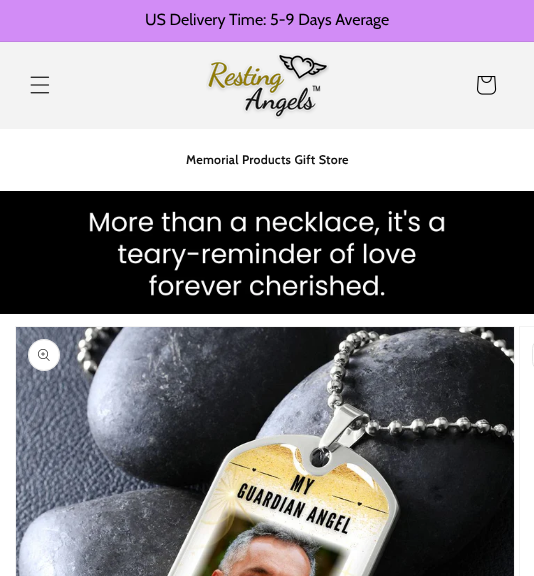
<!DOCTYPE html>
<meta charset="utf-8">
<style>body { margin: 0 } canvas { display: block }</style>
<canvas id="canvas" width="534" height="576"></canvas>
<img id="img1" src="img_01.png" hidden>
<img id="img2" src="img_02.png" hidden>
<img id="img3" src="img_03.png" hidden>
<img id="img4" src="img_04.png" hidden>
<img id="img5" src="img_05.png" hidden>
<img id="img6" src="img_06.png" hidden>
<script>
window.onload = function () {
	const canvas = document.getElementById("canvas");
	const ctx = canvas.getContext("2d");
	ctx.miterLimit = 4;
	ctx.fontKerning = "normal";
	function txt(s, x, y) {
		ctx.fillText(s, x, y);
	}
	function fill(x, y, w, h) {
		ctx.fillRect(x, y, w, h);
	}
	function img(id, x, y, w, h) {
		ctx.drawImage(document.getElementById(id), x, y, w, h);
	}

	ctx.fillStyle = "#FFFFFF";
	fill(0, 0, 534, 576);
	ctx.fillStyle = "#D28CF6";
	fill(0, 0, 534, 41);
	ctx.fillStyle = "#C181E2";
	fill(0, 41, 534, 1);
	ctx.fillStyle = "#F3F3F3";
	fill(0, 42, 534, 87);
	img("img1", 30, 76, 20, 18);
	img("img2", 206, 53, 123, 66);
	img("img3", 477, 76, 20, 19);
	img("img4", 0, 191, 534, 123);
	ctx.strokeStyle = "#F3F3F3";
	ctx.strokeRect(15.5, 326.5, 499, 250);
	img("img5", 16, 327, 498, 249);
	ctx.fillStyle = "#FFFFFF";
	ctx.beginPath();
	ctx.arc(44, 355, 16, 0, Math.PI * 2);
	ctx.fill();
	ctx.beginPath();
	ctx.arc(44, 355, 15.5, 0, Math.PI * 2);
	ctx.strokeStyle = "rgba(18, 18, 18, 0.1)";
	ctx.stroke();
	img("img6", 38, 349, 12, 12);
	ctx.strokeStyle = "#F3F3F3";
	ctx.strokeRect(519.5, 326.5, 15, 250);
	ctx.beginPath();
	ctx.roundRect(532.5, 339.5, 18, 31, 15.5);
	ctx.strokeStyle = "#E7E7E7";
	ctx.stroke();
	ctx.font = "16px Cabin";
	ctx.fillStyle = "#000000";
	txt("US Delivery Time: 5-9 Days Average", 145, 25);
	ctx.letterSpacing = "0.6px";
	ctx.font = "bold 12px Cabin";
	ctx.fillStyle = "#121212";
	txt("Memorial Products Gift Store", 186, 164);
};
</script>
